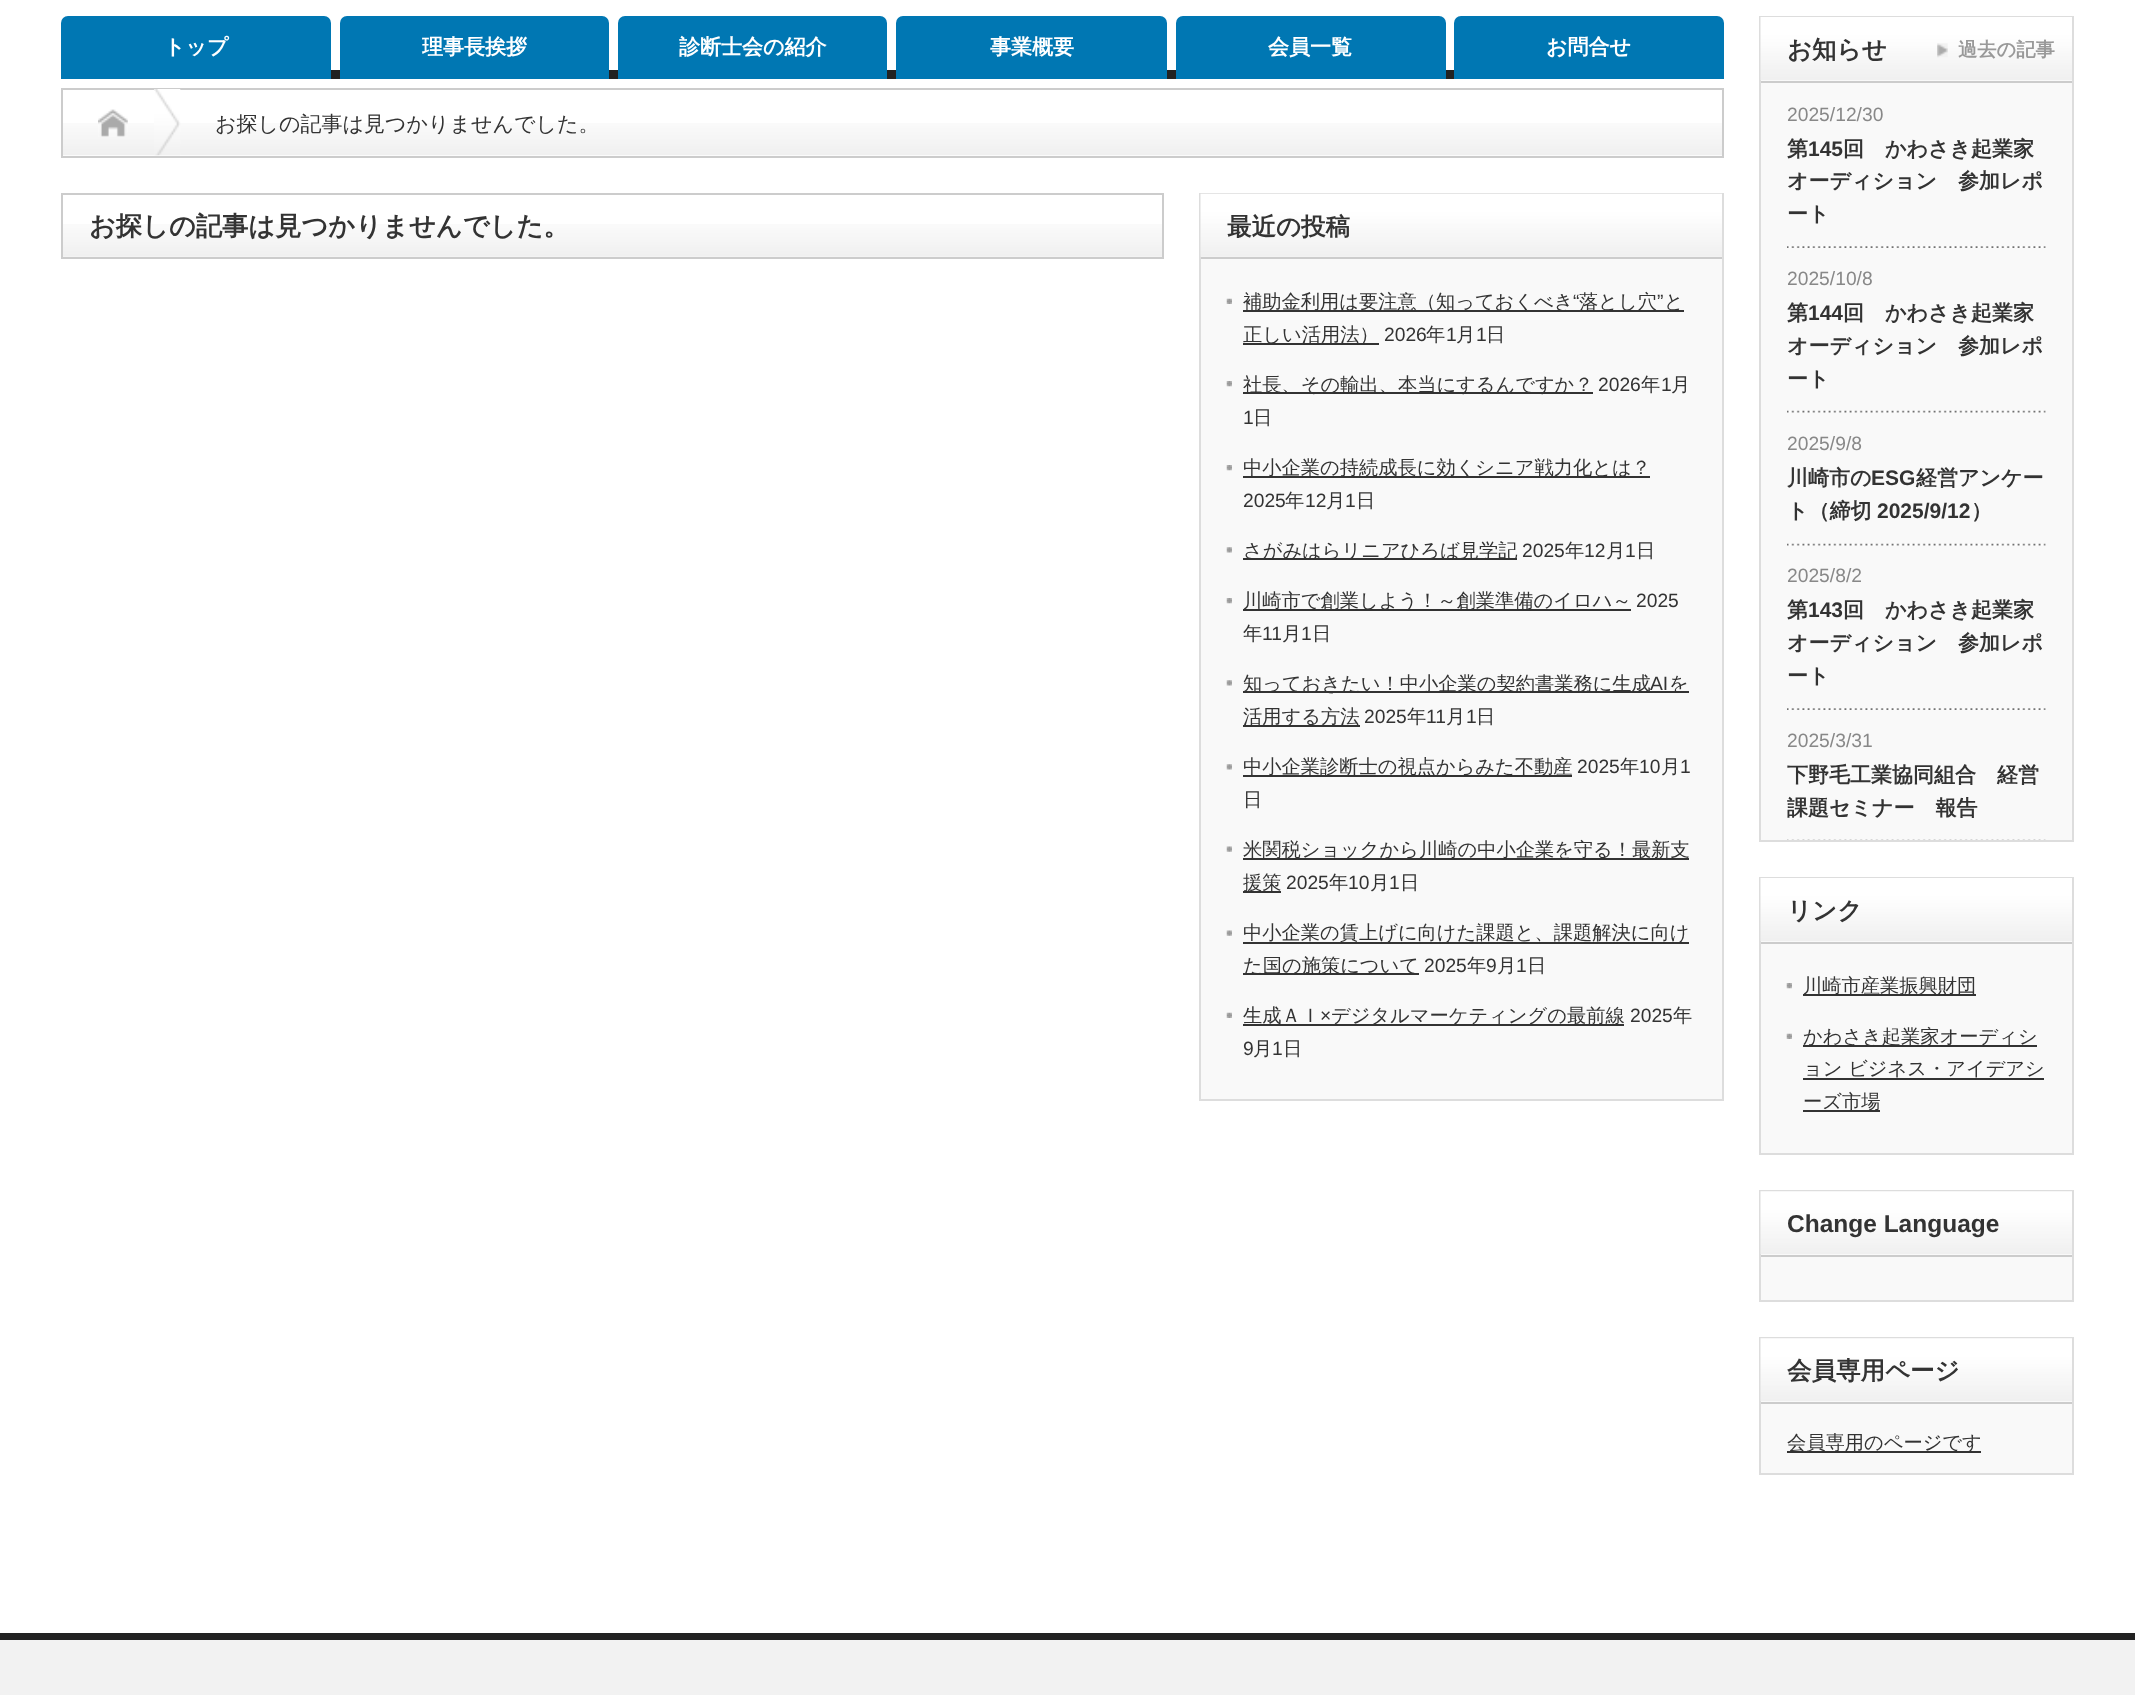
<!DOCTYPE html>
<meta charset="utf-8">
<style>body { margin: 0 } canvas { display: block }</style>
<canvas id="canvas" width="2135" height="1695"></canvas>
<img id="img1" src="img_01.png" hidden>
<img id="img2" src="img_02.png" hidden>
<img id="img3" src="img_03.png" hidden>
<img id="img4" src="img_04.png" hidden>
<img id="img5" src="img_05.png" hidden>
<img id="img6" src="img_06.png" hidden>
<img id="img7" src="img_07.png" hidden>
<img id="img8" src="img_08.png" hidden>
<img id="img9" src="img_09.png" hidden>
<img id="img10" src="img_10.png" hidden>
<img id="img11" src="img_11.png" hidden>
<img id="img12" src="img_12.png" hidden>
<img id="img13" src="img_13.png" hidden>
<img id="img14" src="img_14.png" hidden>
<img id="img15" src="img_15.png" hidden>
<img id="img16" src="img_16.png" hidden>
<img id="img17" src="img_17.png" hidden>
<script>
window.onload = function () {
	const canvas = document.getElementById("canvas");
	const ctx = canvas.getContext("2d");
	ctx.miterLimit = 4;
	ctx.fontKerning = "normal";
	function txt(s, x, y) {
		ctx.fillText(s, x, y);
	}
	function fill(x, y, w, h) {
		ctx.fillRect(x, y, w, h);
	}
	function img(id, x, y, w, h) {
		ctx.drawImage(document.getElementById(id), x, y, w, h);
	}

	ctx.fillStyle = "#FFFFFF";
	fill(0, 0, 2135, 1695);
	ctx.fillStyle = "#222222";
	fill(331, 70, 1123, 9);
	ctx.fillStyle = "#0077B3";
	ctx.beginPath();
	ctx.roundRect(61, 16, 270, 63, [7, 7, 0, 0]);
	ctx.fill();
	ctx.beginPath();
	ctx.roundRect(340, 16, 269, 63, [7, 7, 0, 0]);
	ctx.fill();
	ctx.beginPath();
	ctx.roundRect(618, 16, 269, 63, [7, 7, 0, 0]);
	ctx.fill();
	ctx.beginPath();
	ctx.roundRect(896, 16, 271, 63, [7, 7, 0, 0]);
	ctx.fill();
	ctx.beginPath();
	ctx.roundRect(1176, 16, 270, 63, [7, 7, 0, 0]);
	ctx.fill();
	ctx.beginPath();
	ctx.roundRect(1454, 16, 270, 63, [7, 7, 0, 0]);
	ctx.fill();
	img("img1", 63, 123, 1659, 33);
	ctx.strokeStyle = "#CCCCCC";
	ctx.lineWidth = 2;
	ctx.strokeRect(62, 89, 1661, 68);
	img("img2", 154, 89, 27, 67);
	img("img3", 98, 109, 30, 28);
	img("img4", 63, 224, 1099, 33);
	ctx.strokeRect(62, 194, 1101, 64);
	ctx.fillStyle = "#F9F9F9";
	fill(1201, 256, 521, 843);
	ctx.strokeStyle = "#DDDDDD";
	ctx.strokeRect(1200, 194, 523, 906);
	img("img5", 1200, 193, 522, 64);
	ctx.fillStyle = "#CCCCCC";
	fill(1201, 257, 521, 2);
	img("img6", 1226, 298, 6, 6);
	ctx.fillStyle = "#333333";
	fill(1243, 310, 441, 2);
	fill(1243, 343, 136, 2);
	img("img7", 1226, 381, 6, 6);
	fill(1243, 392, 350, 2);
	img("img7", 1226, 465, 6, 6);
	fill(1243, 476, 407, 2);
	img("img8", 1226, 547, 6, 6);
	fill(1243, 558, 274, 2);
	img("img7", 1226, 598, 6, 6);
	fill(1243, 609, 388, 2);
	img("img8", 1226, 680, 6, 6);
	fill(1243, 691, 446, 2);
	fill(1243, 725, 117, 2);
	img("img8", 1226, 764, 6, 6);
	fill(1243, 775, 329, 2);
	img("img9", 1226, 846, 6, 6);
	fill(1243, 858, 446, 2);
	fill(1243, 891, 38, 2);
	img("img9", 1226, 930, 6, 6);
	fill(1243, 942, 446, 2);
	fill(1243, 973, 176, 2);
	img("img6", 1226, 1012, 6, 6);
	fill(1243, 1024, 381, 2);
	ctx.fillStyle = "#F9F9F9";
	fill(1761, 80, 311, 760);
	ctx.strokeRect(1760, 17, 313, 824);
	img("img10", 1760, 17, 312, 63);
	ctx.fillStyle = "#CCCCCC";
	fill(1761, 81, 311, 2);
	img("img11", 1937, 43, 11, 15);
	img("img12", 1787, 246, 259, 2);
	img("img13", 1787, 410, 259, 3);
	img("img14", 1787, 543, 259, 3);
	img("img15", 1787, 708, 259, 2);
	img("img16", 1787, 839, 259, 1);
	ctx.fillStyle = "#F9F9F9";
	fill(1761, 941, 311, 212);
	ctx.strokeRect(1760, 878, 313, 276);
	img("img10", 1760, 878, 312, 63);
	ctx.fillStyle = "#CCCCCC";
	fill(1761, 942, 311, 2);
	img("img7", 1786, 983, 6, 6);
	ctx.fillStyle = "#333333";
	fill(1803, 994, 173, 2);
	img("img6", 1786, 1033, 6, 6);
	fill(1803, 1045, 234, 2);
	fill(1803, 1078, 241, 2);
	fill(1803, 1110, 77, 2);
	ctx.fillStyle = "#F9F9F9";
	fill(1761, 1254, 311, 46);
	ctx.strokeRect(1760, 1191, 313, 110);
	img("img17", 1760, 1191, 312, 63);
	ctx.fillStyle = "#CCCCCC";
	fill(1761, 1255, 311, 2);
	ctx.fillStyle = "#F9F9F9";
	fill(1761, 1401, 311, 72);
	ctx.strokeRect(1760, 1338, 313, 136);
	img("img17", 1760, 1338, 312, 63);
	ctx.fillStyle = "#CCCCCC";
	fill(1761, 1402, 311, 2);
	ctx.fillStyle = "#333333";
	fill(1787, 1451, 194, 2);
	ctx.fillStyle = "#F2F2F2";
	fill(0, 1640, 2135, 55);
	ctx.fillStyle = "#222222";
	fill(0, 1633, 2135, 7);
	ctx.font = "bold 21px WenQuanYi Zen Hei";
	ctx.fillStyle = "#FFFFFF";
	txt("トップ", 164, 54);
	txt("理事長挨拶", 422, 54);
	txt("診断士会の紹介", 679, 54);
	txt("事業概要", 990, 54);
	txt("会員一覧", 1268, 54);
	txt("お問合せ", 1546, 54);
	ctx.font = "500 21px WenQuanYi Zen Hei";
	ctx.fillStyle = "#333333";
	txt("お探しの記事は見つかりませんでした。", 215, 131);
	ctx.font = "bold 26.25px WenQuanYi Zen Hei";
	txt("お探しの記事は見つかりませんでした。", 89, 235);
	ctx.font = "bold 24.5px WenQuanYi Zen Hei";
	txt("最近の投稿", 1227, 235);
	ctx.font = "500 19.25px WenQuanYi Zen Hei";
	txt("補助金利用は要注意（知っておくべき", 1243, 308);
	ctx.font = "19.25px Liberation Sans";
	txt("“", 1573, 308);
	ctx.font = "500 19.25px WenQuanYi Zen Hei";
	txt("落とし穴", 1579, 308);
	ctx.font = "19.25px Liberation Sans";
	txt("”", 1657, 308);
	ctx.font = "500 19.25px WenQuanYi Zen Hei";
	txt("と", 1664, 308);
	txt("正しい活用法）", 1243, 341);
	ctx.font = "19.25px Liberation Sans";
	txt("2026", 1384, 341);
	ctx.font = "500 19.25px WenQuanYi Zen Hei";
	txt("年", 1426, 341);
	ctx.font = "19.25px Liberation Sans";
	txt("1", 1446, 341);
	ctx.font = "500 19.25px WenQuanYi Zen Hei";
	txt("月", 1456, 341);
	ctx.font = "19.25px Liberation Sans";
	txt("1", 1476, 341);
	ctx.font = "500 19.25px WenQuanYi Zen Hei";
	txt("日", 1486, 341);
	txt("社長、その輸出、本当にするんですか？", 1243, 391);
	ctx.font = "19.25px Liberation Sans";
	txt("2026", 1598, 391);
	ctx.font = "500 19.25px WenQuanYi Zen Hei";
	txt("年", 1641, 391);
	ctx.font = "19.25px Liberation Sans";
	txt("1", 1661, 391);
	ctx.font = "500 19.25px WenQuanYi Zen Hei";
	txt("月", 1671, 391);
	ctx.font = "19.25px Liberation Sans";
	txt("1", 1243, 424);
	ctx.font = "500 19.25px WenQuanYi Zen Hei";
	txt("日", 1253, 424);
	txt("中小企業の持続成長に効くシニア戦力化とは？", 1243, 474);
	ctx.font = "19.25px Liberation Sans";
	txt("2025", 1243, 507);
	ctx.font = "500 19.25px WenQuanYi Zen Hei";
	txt("年", 1285, 507);
	ctx.font = "19.25px Liberation Sans";
	txt("12", 1305, 507);
	ctx.font = "500 19.25px WenQuanYi Zen Hei";
	txt("月", 1326, 507);
	ctx.font = "19.25px Liberation Sans";
	txt("1", 1345, 507);
	ctx.font = "500 19.25px WenQuanYi Zen Hei";
	txt("日", 1356, 507);
	txt("さがみはらリニアひろば見学記", 1243, 557);
	ctx.font = "19.25px Liberation Sans";
	txt("2025", 1522, 557);
	ctx.font = "500 19.25px WenQuanYi Zen Hei";
	txt("年", 1565, 557);
	ctx.font = "19.25px Liberation Sans";
	txt("12", 1584, 557);
	ctx.font = "500 19.25px WenQuanYi Zen Hei";
	txt("月", 1606, 557);
	ctx.font = "19.25px Liberation Sans";
	txt("1", 1625, 557);
	ctx.font = "500 19.25px WenQuanYi Zen Hei";
	txt("日", 1636, 557);
	txt("川崎市で創業しよう！～創業準備のイロハ～", 1243, 607);
	ctx.font = "19.25px Liberation Sans";
	txt("2025", 1636, 607);
	ctx.font = "500 19.25px WenQuanYi Zen Hei";
	txt("年", 1243, 640);
	ctx.font = "19.25px Liberation Sans";
	txt("11", 1262, 640);
	ctx.font = "500 19.25px WenQuanYi Zen Hei";
	txt("月", 1282, 640);
	ctx.font = "19.25px Liberation Sans";
	txt("1", 1301, 640);
	ctx.font = "500 19.25px WenQuanYi Zen Hei";
	txt("日", 1312, 640);
	txt("知っておきたい！中小企業の契約書業務に生成", 1243, 690);
	ctx.font = "19.25px Liberation Sans";
	txt("AI", 1650, 690);
	ctx.font = "500 19.25px WenQuanYi Zen Hei";
	txt("を", 1669, 690);
	txt("活用する方法", 1243, 723);
	ctx.font = "19.25px Liberation Sans";
	txt("2025", 1364, 723);
	ctx.font = "500 19.25px WenQuanYi Zen Hei";
	txt("年", 1407, 723);
	ctx.font = "19.25px Liberation Sans";
	txt("11", 1426, 723);
	ctx.font = "500 19.25px WenQuanYi Zen Hei";
	txt("月", 1446, 723);
	ctx.font = "19.25px Liberation Sans";
	txt("1", 1466, 723);
	ctx.font = "500 19.25px WenQuanYi Zen Hei";
	txt("日", 1476, 723);
	txt("中小企業診断士の視点からみた不動産", 1243, 773);
	ctx.font = "19.25px Liberation Sans";
	txt("2025", 1577, 773);
	ctx.font = "500 19.25px WenQuanYi Zen Hei";
	txt("年", 1620, 773);
	ctx.font = "19.25px Liberation Sans";
	txt("10", 1639, 773);
	ctx.font = "500 19.25px WenQuanYi Zen Hei";
	txt("月", 1661, 773);
	ctx.font = "19.25px Liberation Sans";
	txt("1", 1680, 773);
	ctx.font = "500 19.25px WenQuanYi Zen Hei";
	txt("日", 1243, 806);
	txt("米関税ショックから川崎の中小企業を守る！最新支", 1243, 856);
	txt("援策", 1243, 889);
	ctx.font = "19.25px Liberation Sans";
	txt("2025", 1286, 889);
	ctx.font = "500 19.25px WenQuanYi Zen Hei";
	txt("年", 1329, 889);
	ctx.font = "19.25px Liberation Sans";
	txt("10", 1348, 889);
	ctx.font = "500 19.25px WenQuanYi Zen Hei";
	txt("月", 1370, 889);
	ctx.font = "19.25px Liberation Sans";
	txt("1", 1389, 889);
	ctx.font = "500 19.25px WenQuanYi Zen Hei";
	txt("日", 1400, 889);
	txt("中小企業の賃上げに向けた課題と、課題解決に向け", 1243, 939);
	txt("た国の施策について", 1243, 972);
	ctx.font = "19.25px Liberation Sans";
	txt("2025", 1424, 972);
	ctx.font = "500 19.25px WenQuanYi Zen Hei";
	txt("年", 1467, 972);
	ctx.font = "19.25px Liberation Sans";
	txt("9", 1486, 972);
	ctx.font = "500 19.25px WenQuanYi Zen Hei";
	txt("月", 1497, 972);
	ctx.font = "19.25px Liberation Sans";
	txt("1", 1516, 972);
	ctx.font = "500 19.25px WenQuanYi Zen Hei";
	txt("日", 1527, 972);
	txt("生成ＡＩ", 1243, 1022);
	ctx.font = "19.25px Liberation Sans";
	txt("×", 1320, 1022);
	ctx.font = "500 19.25px WenQuanYi Zen Hei";
	txt("デジタルマーケティングの最前線", 1331, 1022);
	ctx.font = "19.25px Liberation Sans";
	txt("2025", 1630, 1022);
	ctx.font = "500 19.25px WenQuanYi Zen Hei";
	txt("年", 1673, 1022);
	ctx.font = "19.25px Liberation Sans";
	txt("9", 1243, 1055);
	ctx.font = "500 19.25px WenQuanYi Zen Hei";
	txt("月", 1253, 1055);
	ctx.font = "19.25px Liberation Sans";
	txt("1", 1272, 1055);
	ctx.font = "500 19.25px WenQuanYi Zen Hei";
	txt("日", 1283, 1055);
	ctx.font = "bold 24.5px WenQuanYi Zen Hei";
	txt("お知らせ", 1787, 58);
	ctx.font = "bold 19.25px WenQuanYi Zen Hei";
	ctx.fillStyle = "#999999";
	txt("過去の記事", 1958, 56);
	ctx.font = "19.25px Liberation Sans";
	ctx.fillStyle = "#888888";
	txt("2025/12/30", 1787, 121);
	ctx.font = "bold 21px WenQuanYi Zen Hei";
	ctx.fillStyle = "#333333";
	txt("第", 1787, 156);
	ctx.font = "bold 21px Liberation Sans";
	txt("145", 1808, 156);
	ctx.font = "bold 21px WenQuanYi Zen Hei";
	txt("回　かわさき起業家", 1843, 156);
	txt("オーディション　参加レポ", 1787, 188);
	txt("ート", 1787, 221);
	ctx.font = "19.25px Liberation Sans";
	ctx.fillStyle = "#888888";
	txt("2025/10/8", 1787, 285);
	ctx.font = "bold 21px WenQuanYi Zen Hei";
	ctx.fillStyle = "#333333";
	txt("第", 1787, 320);
	ctx.font = "bold 21px Liberation Sans";
	txt("144", 1808, 320);
	ctx.font = "bold 21px WenQuanYi Zen Hei";
	txt("回　かわさき起業家", 1843, 320);
	txt("オーディション　参加レポ", 1787, 353);
	txt("ート", 1787, 386);
	ctx.font = "19.25px Liberation Sans";
	ctx.fillStyle = "#888888";
	txt("2025/9/8", 1787, 450);
	ctx.font = "bold 21px WenQuanYi Zen Hei";
	ctx.fillStyle = "#333333";
	txt("川崎市の", 1787, 485);
	ctx.font = "bold 21px Liberation Sans";
	txt("ESG", 1871, 485);
	ctx.font = "bold 21px WenQuanYi Zen Hei";
	txt("経営アンケー", 1916, 485);
	txt("ト（締切", 1787, 518);
	ctx.font = "bold 21px Liberation Sans";
	txt("2025/9/12", 1877, 518);
	ctx.font = "bold 21px WenQuanYi Zen Hei";
	txt("）", 1971, 518);
	ctx.font = "19.25px Liberation Sans";
	ctx.fillStyle = "#888888";
	txt("2025/8/2", 1787, 582);
	ctx.font = "bold 21px WenQuanYi Zen Hei";
	ctx.fillStyle = "#333333";
	txt("第", 1787, 617);
	ctx.font = "bold 21px Liberation Sans";
	txt("143", 1808, 617);
	ctx.font = "bold 21px WenQuanYi Zen Hei";
	txt("回　かわさき起業家", 1843, 617);
	txt("オーディション　参加レポ", 1787, 650);
	txt("ート", 1787, 683);
	ctx.font = "19.25px Liberation Sans";
	ctx.fillStyle = "#888888";
	txt("2025/3/31", 1787, 747);
	ctx.font = "bold 21px WenQuanYi Zen Hei";
	ctx.fillStyle = "#333333";
	txt("下野毛工業協同組合　経営", 1787, 782);
	txt("課題セミナー　報告", 1787, 815);
	ctx.font = "bold 24.5px WenQuanYi Zen Hei";
	txt("リンク", 1787, 919);
	ctx.font = "500 19.25px WenQuanYi Zen Hei";
	txt("川崎市産業振興財団", 1803, 992);
	txt("かわさき起業家オーディシ", 1803, 1043);
	txt("ョン ビジネス・アイデアシ", 1803, 1075);
	txt("ーズ市場", 1803, 1108);
	ctx.font = "bold 24.5px Liberation Sans";
	txt("Change Language", 1787, 1232);
	ctx.font = "bold 24.5px WenQuanYi Zen Hei";
	txt("会員専用ページ", 1787, 1379);
	ctx.font = "500 19.25px WenQuanYi Zen Hei";
	txt("会員専用のページです", 1787, 1449);
};
</script>
